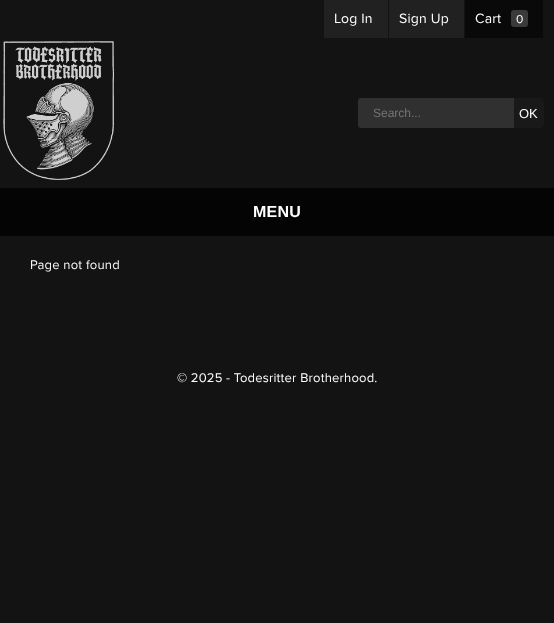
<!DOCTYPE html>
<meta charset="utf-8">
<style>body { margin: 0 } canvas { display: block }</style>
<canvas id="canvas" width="554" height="623"></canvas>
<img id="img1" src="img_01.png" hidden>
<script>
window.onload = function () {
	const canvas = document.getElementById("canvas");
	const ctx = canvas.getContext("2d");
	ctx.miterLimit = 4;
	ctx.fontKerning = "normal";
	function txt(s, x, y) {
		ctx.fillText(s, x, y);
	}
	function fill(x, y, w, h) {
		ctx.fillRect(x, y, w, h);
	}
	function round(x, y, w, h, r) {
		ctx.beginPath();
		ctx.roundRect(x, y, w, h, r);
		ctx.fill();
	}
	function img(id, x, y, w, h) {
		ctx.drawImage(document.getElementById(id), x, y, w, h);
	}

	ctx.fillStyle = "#131313";
	fill(0, 0, 554, 623);
	ctx.fillStyle = "#212121";
	fill(324, 0, 64, 38);
	fill(389, 0, 75, 38);
	ctx.fillStyle = "#090909";
	fill(465, 0, 78, 38);
	ctx.fillStyle = "#3A3A3A";
	round(511, 10, 17, 17, 3);
	img("img1", 3, 41, 111, 139);
	ctx.fillStyle = "#303030";
	ctx.beginPath();
	ctx.roundRect(358, 98, 166, 30, [3, 0, 0, 3]);
	ctx.fill();
	ctx.fillStyle = "#191919";
	ctx.beginPath();
	ctx.roundRect(514, 99, 29, 28, [0, 2, 2, 0]);
	ctx.fill();
	ctx.beginPath();
	ctx.moveTo(514, 98);
	ctx.lineTo(541, 98);
	ctx.bezierCurveTo(542.5, 98, 544, 99.5, 544, 101);
	ctx.lineTo(544, 125);
	ctx.bezierCurveTo(544, 126.5, 542.5, 128, 541, 128);
	ctx.lineTo(514, 128);
	ctx.closePath();
	ctx.moveTo(514, 99);
	ctx.lineTo(541, 99);
	ctx.bezierCurveTo(542, 99, 543, 100, 543, 101);
	ctx.lineTo(543, 125);
	ctx.bezierCurveTo(543, 126, 542, 127, 541, 127);
	ctx.lineTo(514, 127);
	ctx.closePath();
	ctx.fill("evenodd");
	ctx.fillStyle = "#040404";
	fill(0, 188, 554, 48);
	ctx.letterSpacing = "0.2px";
	ctx.font = "14px Proxima Nova";
	ctx.fillStyle = "#FFFFFF";
	txt("Log In", 334, 23);
	txt("Sign Up", 399, 23);
	txt("Cart", 475, 23);
	ctx.font = "12px Proxima Nova";
	txt("0", 516, 23);
	ctx.letterSpacing = "0px";
	ctx.font = "12px Liberation Sans";
	ctx.fillStyle = "#757575";
	txt("Search...", 373, 117);
	ctx.font = "13px Liberation Sans";
	ctx.fillStyle = "#FFFFFF";
	txt("OK", 519, 118);
	ctx.letterSpacing = "0.2px";
	ctx.font = "bold 16px Liberation Sans";
	txt("MENU", 253, 217);
	ctx.font = "13px Proxima Nova";
	ctx.fillStyle = "#F9F9F9";
	txt("Page not found", 30, 269);
	ctx.fillStyle = "#FFFFFF";
	txt("© 2025 - Todesritter Brotherhood.", 177, 382);
};
</script>
